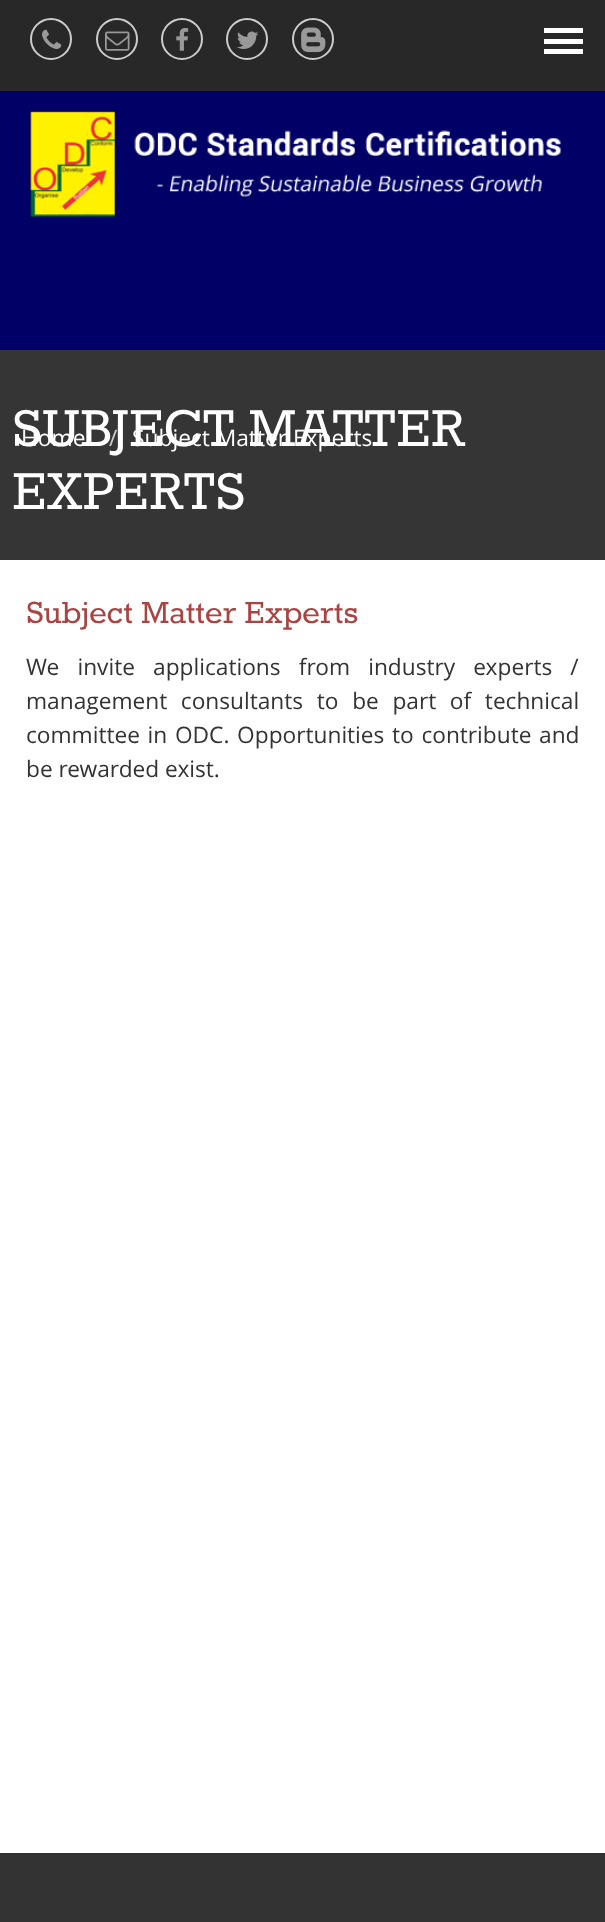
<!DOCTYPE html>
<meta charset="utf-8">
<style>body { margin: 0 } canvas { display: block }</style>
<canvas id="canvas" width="605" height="1922"></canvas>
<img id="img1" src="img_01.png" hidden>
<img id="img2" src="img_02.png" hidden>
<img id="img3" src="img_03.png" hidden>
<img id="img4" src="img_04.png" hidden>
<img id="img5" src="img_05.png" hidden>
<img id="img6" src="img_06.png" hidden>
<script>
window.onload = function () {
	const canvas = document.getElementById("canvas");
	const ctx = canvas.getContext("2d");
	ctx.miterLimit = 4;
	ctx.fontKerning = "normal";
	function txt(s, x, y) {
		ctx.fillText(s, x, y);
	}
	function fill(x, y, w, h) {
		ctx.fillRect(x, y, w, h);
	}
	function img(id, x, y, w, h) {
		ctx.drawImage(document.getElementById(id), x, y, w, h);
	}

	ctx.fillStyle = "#FFFFFF";
	fill(0, 0, 605, 1922);
	ctx.fillStyle = "#282828";
	fill(0, 0, 605, 91);
	ctx.fillStyle = "#FFFFFF";
	fill(544, 28, 39, 5);
	fill(544, 39, 39, 5);
	fill(544, 49, 39, 5);
	ctx.fillStyle = "#010066";
	fill(0, 91, 605, 259);
	ctx.beginPath();
	ctx.arc(51, 39, 20, 0, Math.PI * 2);
	ctx.strokeStyle = "#CCCCCC";
	ctx.lineWidth = 2;
	ctx.stroke();
	img("img1", 42, 29, 20, 20);
	ctx.beginPath();
	ctx.arc(117, 39, 20, 0, Math.PI * 2);
	ctx.stroke();
	img("img2", 105, 31, 25, 20);
	ctx.beginPath();
	ctx.arc(182, 39, 20, 0, Math.PI * 2);
	ctx.stroke();
	img("img3", 176, 28, 13, 23);
	ctx.beginPath();
	ctx.arc(247, 39, 20, 0, Math.PI * 2);
	ctx.stroke();
	img("img4", 237, 31, 22, 18);
	ctx.beginPath();
	ctx.arc(313, 39, 20, 0, Math.PI * 2);
	ctx.stroke();
	img("img5", 301, 27, 25, 26);
	img("img6", 30, 111, 531, 106);
	ctx.fillStyle = "#353535";
	fill(0, 350, 605, 210);
	ctx.fillStyle = "#333333";
	fill(0, 1853, 605, 69);
	ctx.font = "63.5px Rokkitt";
	ctx.fillStyle = "#FFFFFF";
	txt("EXPERTS", 12, 509);
	ctx.font = "22.75px Open Sans";
	txt("Home", 21, 446);
	ctx.fillStyle = "#CCCCCC";
	txt("/", 109, 446);
	ctx.fillStyle = "#FFFFFF";
	txt("Subject Matter Experts", 132, 446);
	ctx.font = "63.5px Rokkitt";
	txt("SUBJECT MATTER", 12, 446);
	ctx.font = "37.5px Rokkitt";
	ctx.fillStyle = "#A94442";
	txt("Subject Matter Experts", 26, 623);
	ctx.wordSpacing = "12.25px";
	ctx.font = "22.7px Open Sans";
	ctx.fillStyle = "#333333";
	txt("We invite applications from industry experts /", 26, 675);
	ctx.wordSpacing = "7.75px";
	txt("management consultants to be part of technical", 26, 709);
	ctx.wordSpacing = "1.75px";
	txt("committee in ODC. Opportunities to contribute and", 26, 743);
	ctx.wordSpacing = "0px";
	txt("be rewarded exist.", 26, 777);
};
</script>
